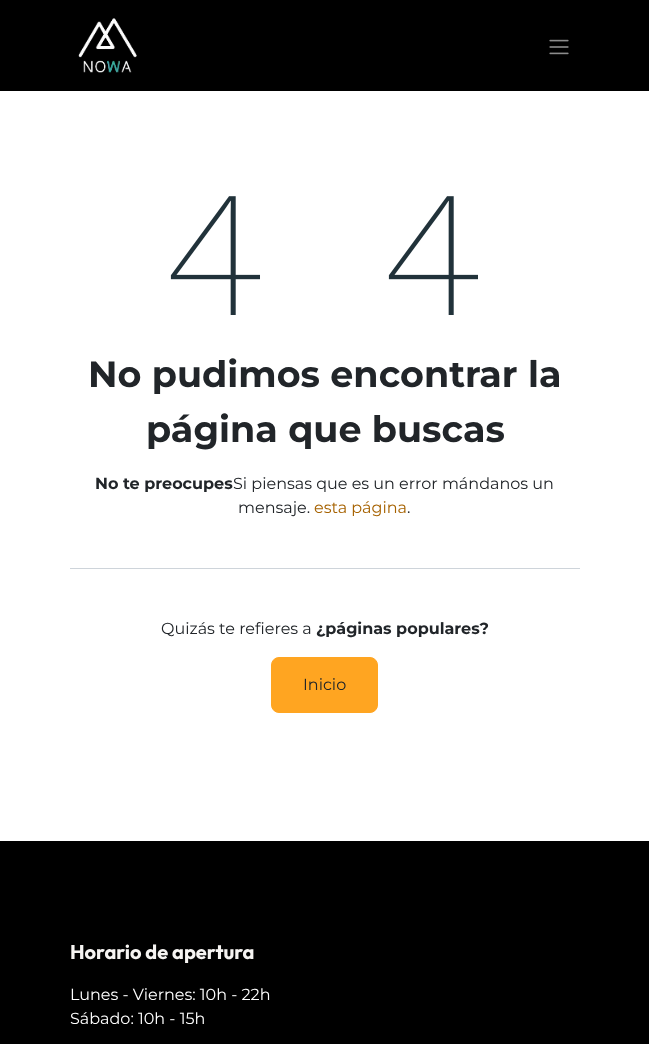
<!DOCTYPE html>
<meta charset="utf-8">
<style>body { margin: 0 } canvas { display: block }</style>
<canvas id="canvas" width="649" height="1044"></canvas>
<img id="img1" src="img_01.png" hidden>
<img id="img2" src="img_02.png" hidden>
<img id="img3" src="img_03.png" hidden>
<script>
window.onload = function () {
	const canvas = document.getElementById("canvas");
	const ctx = canvas.getContext("2d");
	ctx.miterLimit = 4;
	ctx.fontKerning = "normal";
	function txt(s, x, y) {
		ctx.fillText(s, x, y);
	}
	function fill(x, y, w, h) {
		ctx.fillRect(x, y, w, h);
	}
	function img(id, x, y, w, h) {
		ctx.drawImage(document.getElementById(id), x, y, w, h);
	}

	ctx.fillStyle = "#FFFFFF";
	fill(0, 0, 649, 1044);
	ctx.fillStyle = "#000000";
	fill(0, 0, 649, 91);
	img("img1", 78, 18, 59, 55);
	img("img2", 549, 39, 20, 16);
	img("img3", 170, 196, 308, 119);
	ctx.fillStyle = "#CED4DA";
	fill(70, 568, 510, 1);
	ctx.fillStyle = "#FFA521";
	ctx.beginPath();
	ctx.roundRect(271.5, 657.5, 106, 55, 7.5);
	ctx.fill();
	ctx.strokeStyle = "#FFA521";
	ctx.stroke();
	ctx.fillStyle = "#000000";
	fill(0, 841, 649, 203);
	ctx.font = "bold 36.5px Montserrat";
	ctx.fillStyle = "#212529";
	txt("No pudimos encontrar la", 88, 387);
	txt("página que buscas", 146, 442);
	ctx.font = "bold 16px Montserrat";
	txt("No te preocupes", 95, 489);
	ctx.font = "16px Montserrat";
	txt("Si piensas que es un error mándanos un", 233, 489);
	txt("mensaje.", 238, 513);
	ctx.fillStyle = "#A66200";
	txt("esta página", 314, 513);
	ctx.fillStyle = "#212529";
	txt(".", 407, 513);
	txt("Quizás te refieres a", 161, 634);
	ctx.font = "bold 16px Montserrat";
	txt("¿páginas populares?", 316, 634);
	ctx.font = "16px Montserrat";
	txt("Inicio", 303, 690);
	ctx.font = "bold 20px Outfit";
	ctx.fillStyle = "#F6F4F2";
	txt("Horario de apertura", 70, 959);
	ctx.font = "16px Montserrat";
	ctx.fillStyle = "#FFFFFF";
	txt("Lunes - Viernes: 10h - 22h", 70, 1000);
	txt("Sábado: 10h - 15h", 70, 1024);
};
</script>
